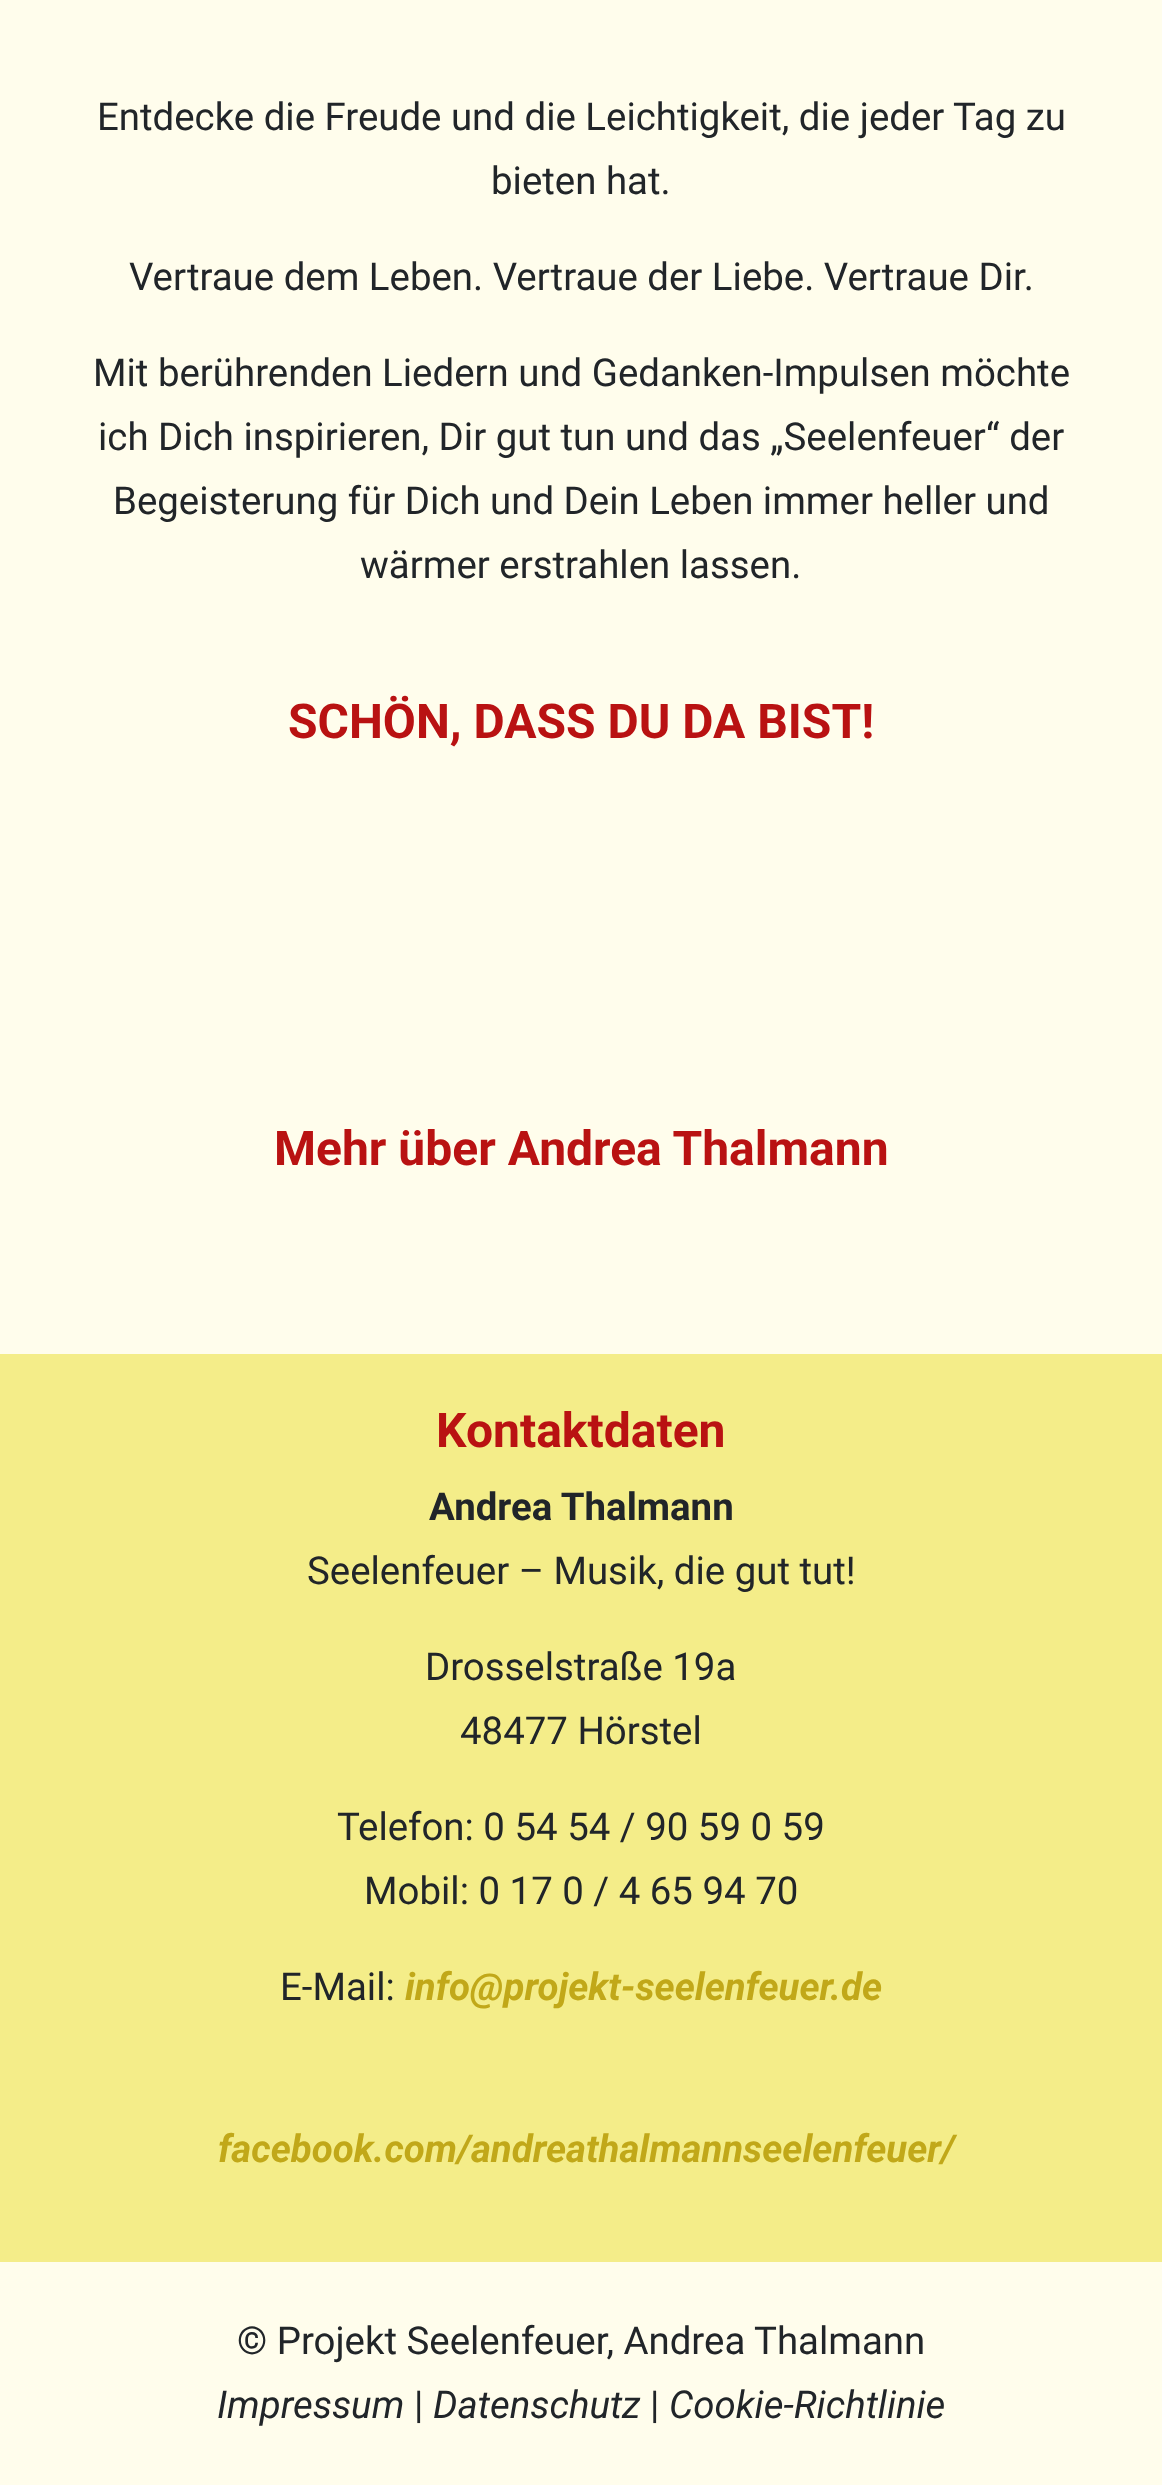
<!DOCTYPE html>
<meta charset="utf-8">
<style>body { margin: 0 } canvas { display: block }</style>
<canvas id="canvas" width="1162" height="2485"></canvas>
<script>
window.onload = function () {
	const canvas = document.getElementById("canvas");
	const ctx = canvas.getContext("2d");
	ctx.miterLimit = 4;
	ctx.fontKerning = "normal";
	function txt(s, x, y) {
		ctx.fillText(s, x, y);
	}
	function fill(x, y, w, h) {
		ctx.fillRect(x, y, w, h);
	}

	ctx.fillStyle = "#FFFDEC";
	fill(0, 0, 1162, 2485);
	ctx.fillStyle = "#F4ED89";
	fill(0, 1354, 1162, 908);
	ctx.font = "38.4px Roboto";
	ctx.fillStyle = "#212529";
	txt("Entdecke die Freude und die Leichtigkeit, die jeder Tag zu", 97, 130);
	txt("bieten hat.", 491, 194);
	txt("Vertraue dem Leben. Vertraue der Liebe. Vertraue Dir.", 129, 290);
	txt("Mit berührenden Liedern und Gedanken-Impulsen möchte", 93, 386);
	txt("ich Dich inspirieren, Dir gut tun und das „Seelenfeuer“ der", 98, 450);
	txt("Begeisterung für Dich und Dein Leben immer heller und", 113, 514);
	txt("wärmer erstrahlen lassen.", 360, 578);
	ctx.font = "bold 48px Roboto";
	ctx.fillStyle = "#B91212";
	txt("SCHÖN, DASS DU DA BIST!", 288, 738);
	txt("Mehr über Andrea Thalmann", 274, 1165);
	txt("Kontaktdaten", 436, 1447);
	ctx.font = "bold 38.4px Roboto";
	ctx.fillStyle = "#212529";
	txt("Andrea Thalmann", 429, 1520);
	ctx.font = "38.4px Roboto";
	txt("Seelenfeuer – Musik, die gut tut!", 307, 1584);
	txt("Drosselstraße 19a", 425, 1680);
	txt("48477 Hörstel", 460, 1744);
	txt("Telefon: 0 54 54 / 90 59 0 59", 337, 1840);
	txt("Mobil: 0 17 0 / 4 65 94 70", 364, 1904);
	txt("E-Mail:", 280, 2000);
	ctx.font = "italic bold 38.4px Roboto";
	ctx.fillStyle = "#C1A819";
	txt("info@projekt-seelenfeuer.de", 405, 2000);
	txt("facebook.com/andreathalmannseelenfeuer/", 218, 2162);
	ctx.font = "38.4px Roboto";
	ctx.fillStyle = "#212529";
	txt("© Projekt Seelenfeuer, Andrea Thalmann", 237, 2354);
	ctx.font = "italic 38.4px Roboto";
	txt("Impressum", 217, 2418);
	ctx.font = "38.4px Roboto";
	txt("|", 414, 2418);
	ctx.font = "italic 38.4px Roboto";
	txt("Datenschutz", 433, 2418);
	ctx.font = "38.4px Roboto";
	txt("|", 650, 2418);
	ctx.font = "italic 38.4px Roboto";
	txt("Cookie-Richtlinie", 669, 2418);
};
</script>
